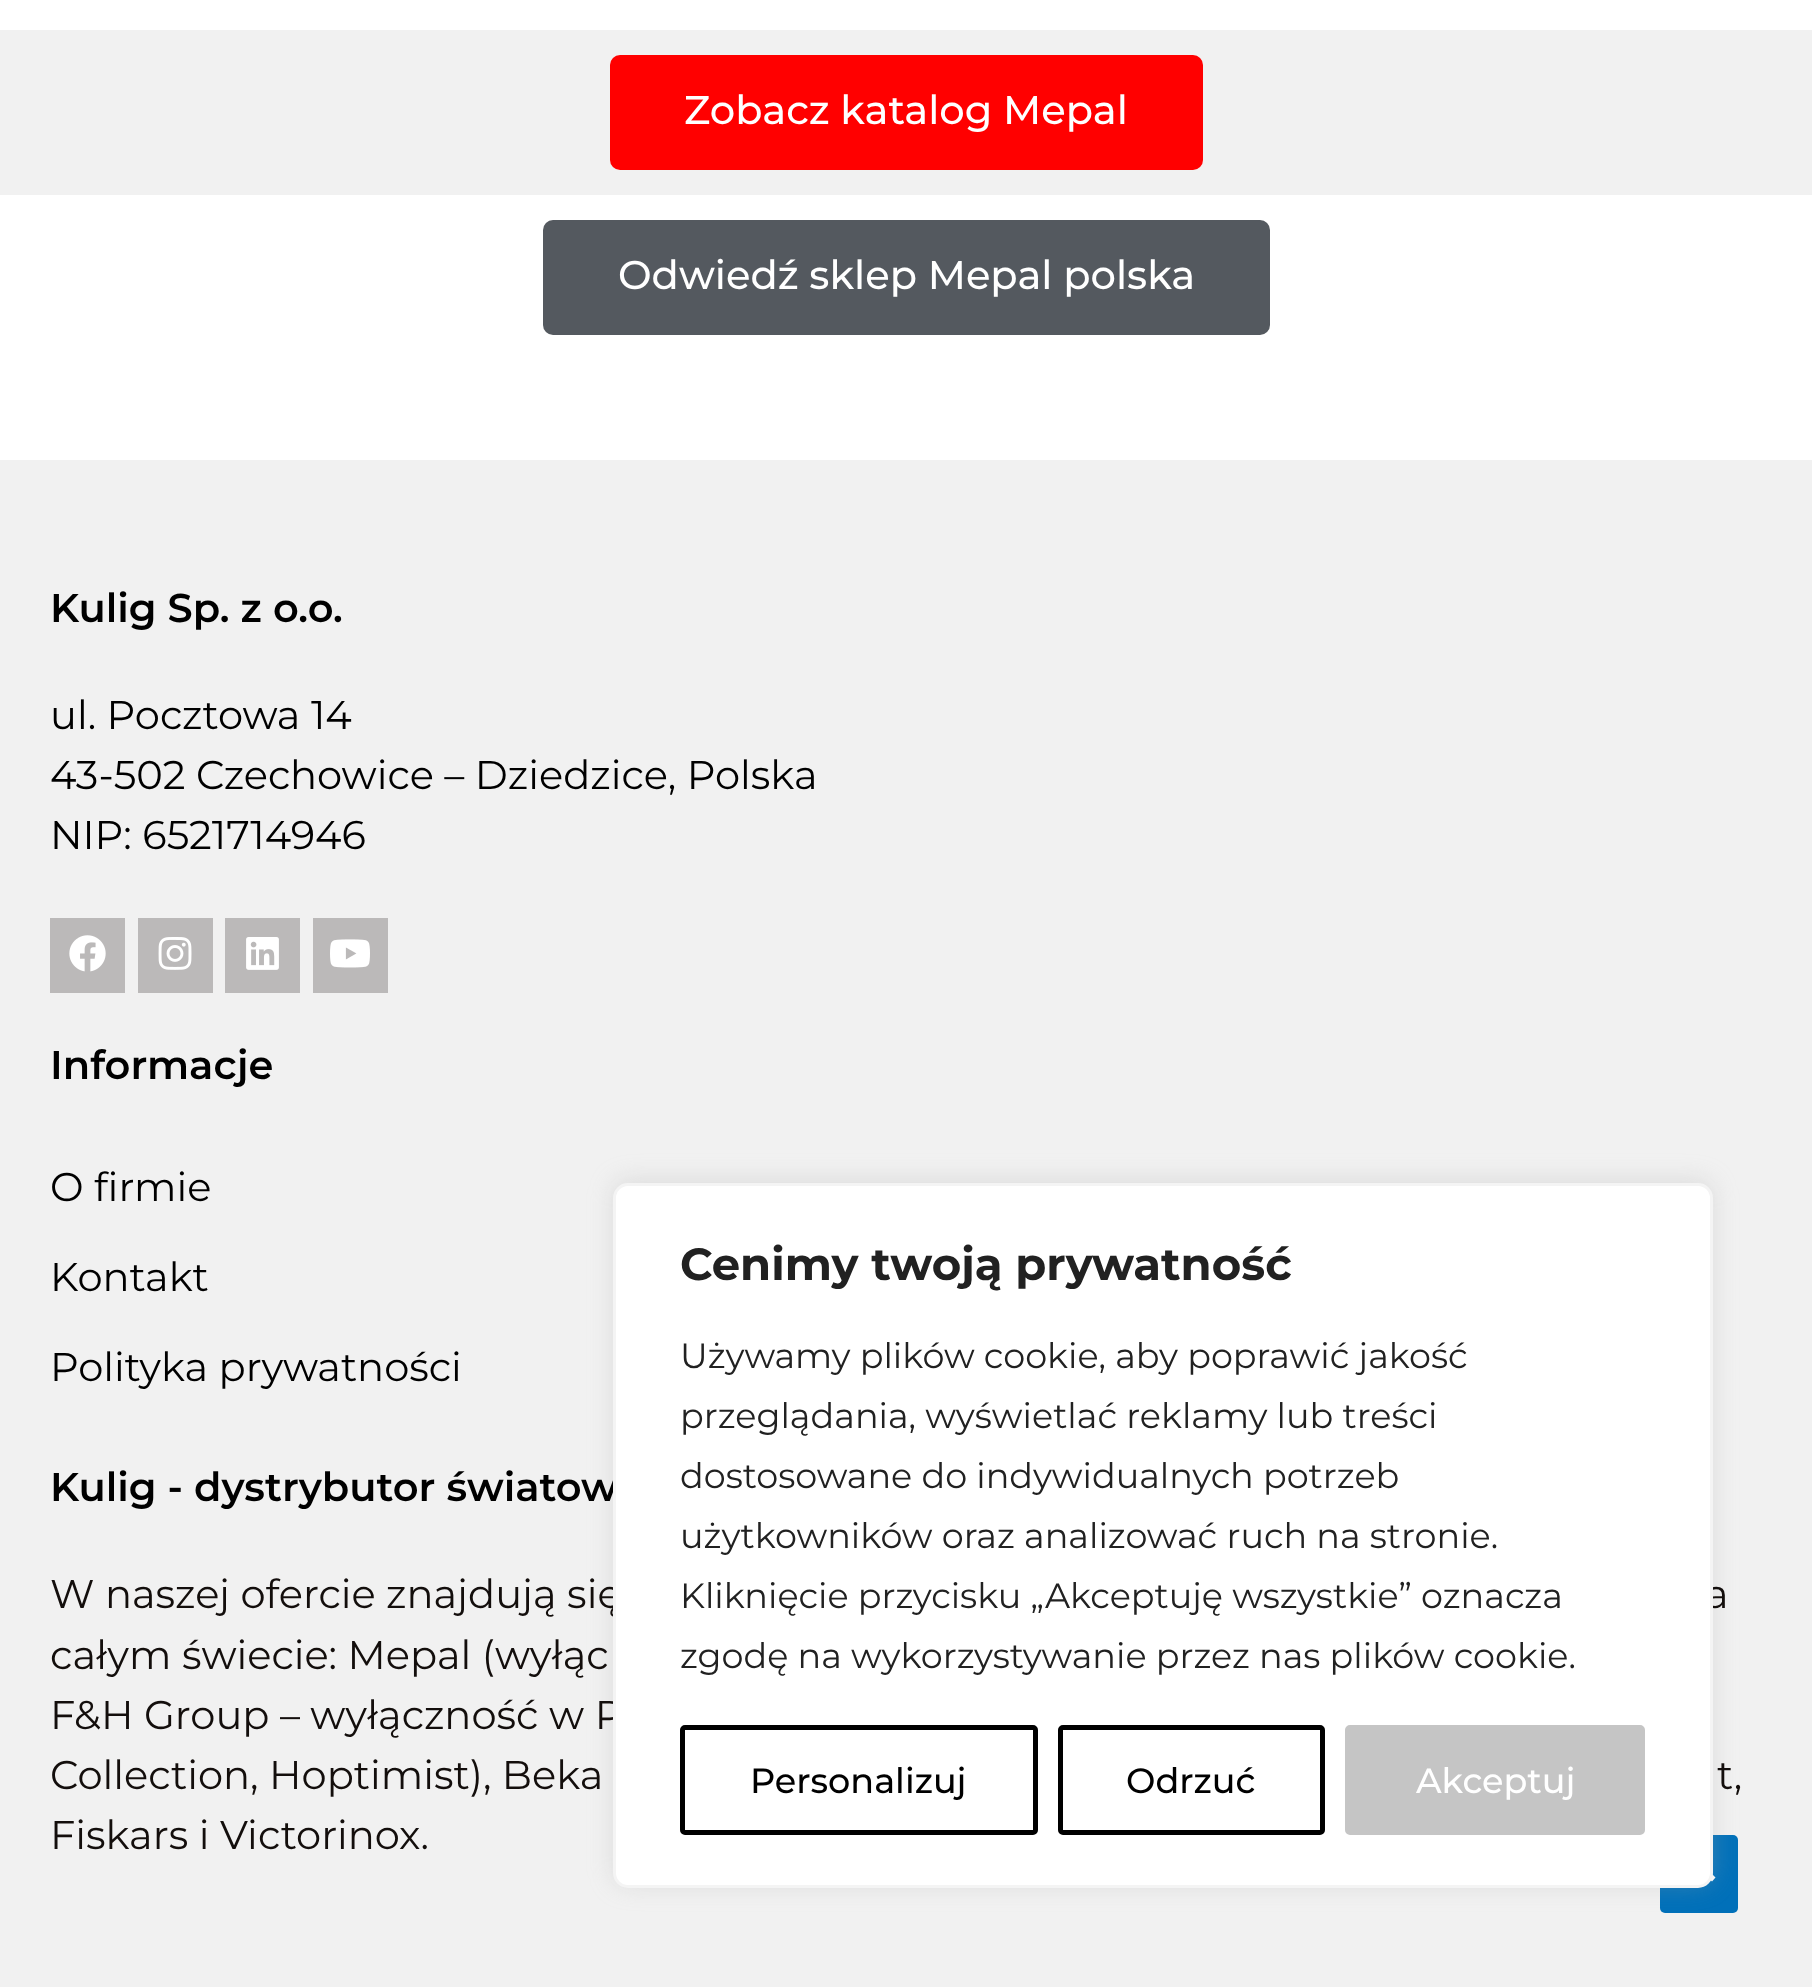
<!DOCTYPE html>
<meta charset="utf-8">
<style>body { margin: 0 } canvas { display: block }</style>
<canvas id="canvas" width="1812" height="1987"></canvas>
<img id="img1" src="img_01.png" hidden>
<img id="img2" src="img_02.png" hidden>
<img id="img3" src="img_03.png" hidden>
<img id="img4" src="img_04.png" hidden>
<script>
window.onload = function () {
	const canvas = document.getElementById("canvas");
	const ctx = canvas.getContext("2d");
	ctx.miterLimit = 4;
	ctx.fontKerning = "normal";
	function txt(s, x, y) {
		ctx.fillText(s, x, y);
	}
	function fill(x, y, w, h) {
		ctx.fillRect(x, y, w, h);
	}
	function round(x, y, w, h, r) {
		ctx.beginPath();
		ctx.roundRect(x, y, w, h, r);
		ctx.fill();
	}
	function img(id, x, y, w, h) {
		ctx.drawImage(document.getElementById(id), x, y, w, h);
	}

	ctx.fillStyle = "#FFFFFF";
	fill(0, 0, 1812, 1987);
	ctx.fillStyle = "#F1F1F1";
	fill(0, 30, 1812, 165);
	ctx.fillStyle = "#FF0000";
	round(610, 55, 593, 115, 10);
	ctx.fillStyle = "#54595F";
	round(543, 220, 727, 115, 10);
	ctx.fillStyle = "#F1F1F1";
	fill(0, 460, 1812, 1527);
	ctx.fillStyle = "#BBB9B9";
	fill(50, 918, 75, 75);
	img("img1", 69, 935, 37, 37);
	fill(138, 918, 75, 75);
	img("img2", 158, 937, 34, 33);
	fill(225, 918, 75, 75);
	img("img3", 246, 937, 33, 33);
	fill(313, 918, 75, 75);
	img("img4", 330, 939, 40, 29);
	ctx.fillStyle = "#0170B9";
	round(1660, 1835, 78, 78, 5);
	ctx.fillStyle = "#FFFFFF";
	ctx.beginPath();
	ctx.moveTo(1715.5, 1877.5);
	ctx.lineTo(1697.5, 1859.5);
	ctx.lineTo(1679.5, 1877.5);
	ctx.lineTo(1683, 1881.5);
	ctx.lineTo(1697.5, 1867);
	ctx.lineTo(1712, 1881.5);
	ctx.closePath();
	ctx.fill();
	ctx.fillStyle = "rgba(172, 171, 171, 0.3)";
	ctx.filter = "blur(12.5px)";
	ctx.beginPath();
	ctx.roundRect(613, 1180, 1100, 705, 15);
	ctx.fill();
	ctx.filter = "none";
	ctx.font = "500 40px Montserrat";
	ctx.fillStyle = "#FFFFFF";
	txt("Zobacz katalog Mepal", 684, 124);
	txt("Odwiedź sklep Mepal polska", 618, 289);
	ctx.font = "600 40px Montserrat";
	ctx.fillStyle = "#000000";
	txt("Kulig Sp. z o.o.", 50, 622);
	ctx.font = "40px Montserrat";
	txt("ul. Pocztowa 14", 50, 729);
	txt("43-502 Czechowice – Dziedzice, Polska", 50, 789);
	txt("NIP: 6521714946", 50, 849);
	ctx.font = "600 40px Montserrat";
	txt("Informacje", 50, 1079);
	ctx.font = "40px Montserrat";
	txt("O firmie", 50, 1201);
	txt("Kontakt", 50, 1291);
	txt("Polityka prywatności", 50, 1381);
	ctx.font = "600 40px Montserrat";
	txt("Kulig - dystrybutor światow", 50, 1501);
	ctx.font = "40px Montserrat";
	ctx.fillStyle = "#130E0C";
	txt("W naszej ofercie znajdują się", 50, 1608);
	txt("a", 1705, 1608);
	txt("całym świecie: Mepal (wyłąc", 50, 1669);
	txt("F&H Group – wyłączność w P", 50, 1729);
	txt("Collection, Hoptimist), Beka", 50, 1789);
	txt("t,", 1717, 1789);
	txt("Fiskars i Victorinox.", 50, 1849);
	ctx.fillStyle = "#FFFFFF";
	ctx.beginPath();
	ctx.roundRect(614.5, 1184.5, 1097, 702, 13.5);
	ctx.fill();
	ctx.strokeStyle = "#F4F4F4";
	ctx.lineWidth = 3;
	ctx.stroke();
	ctx.font = "bold 45px Montserrat";
	ctx.fillStyle = "#212121";
	txt("Cenimy twoją prywatność", 680, 1280);
	ctx.font = "35px Montserrat";
	txt("Używamy plików cookie, aby poprawić jakość", 680, 1368);
	txt("przeglądania, wyświetlać reklamy lub treści", 680, 1428);
	txt("dostosowane do indywidualnych potrzeb", 680, 1488);
	txt("użytkowników oraz analizować ruch na stronie.", 680, 1548);
	txt("Kliknięcie przycisku „Akceptuję wszystkie” oznacza", 680, 1608);
	txt("zgodę na wykorzystywanie przez nas plików cookie.", 680, 1668);
	ctx.beginPath();
	ctx.roundRect(682.5, 1727.5, 353, 105, 2.5);
	ctx.strokeStyle = "#000000";
	ctx.lineWidth = 5;
	ctx.stroke();
	ctx.font = "500 35px Montserrat";
	ctx.fillStyle = "#000000";
	txt("Personalizuj", 750, 1793);
	ctx.beginPath();
	ctx.roundRect(1060.5, 1727.5, 262, 105, 2.5);
	ctx.stroke();
	txt("Odrzuć", 1126, 1793);
	ctx.fillStyle = "#C5C5C5";
	ctx.beginPath();
	ctx.roundRect(1347.5, 1727.5, 295, 105, 2.5);
	ctx.fill();
	ctx.strokeStyle = "#C5C5C5";
	ctx.stroke();
	ctx.fillStyle = "#FFFFFF";
	txt("Akceptuj", 1416, 1793);
};
</script>
